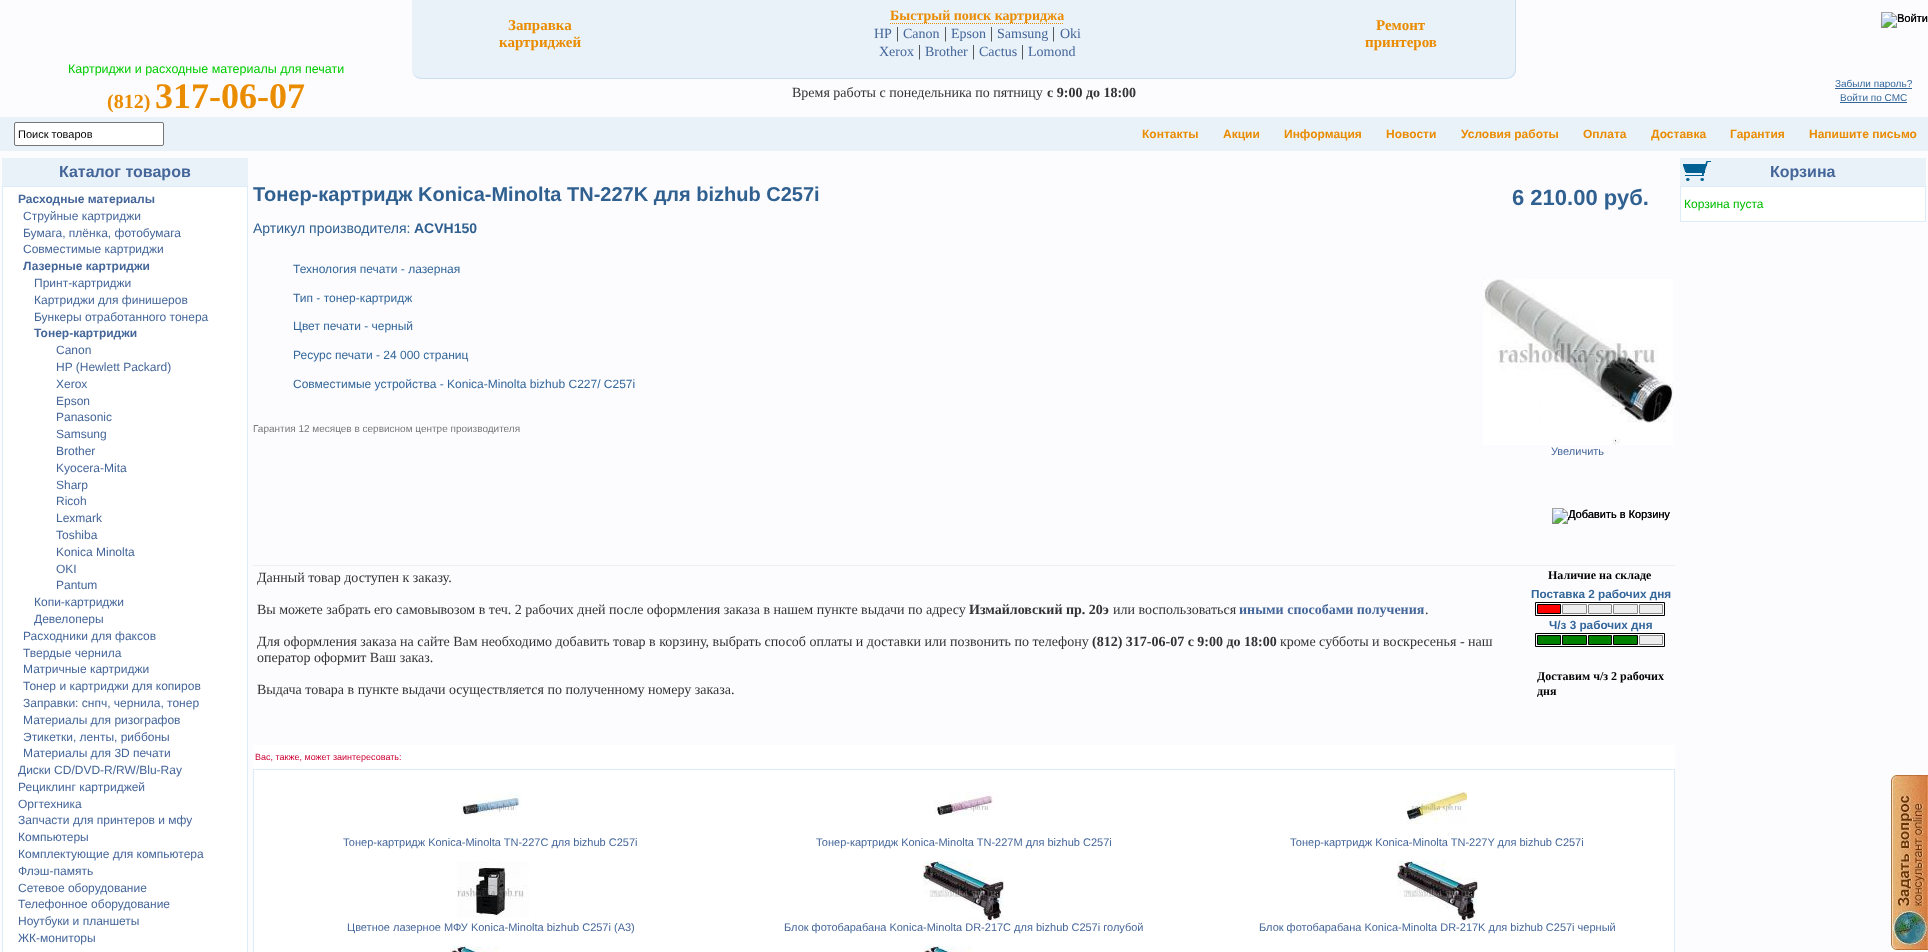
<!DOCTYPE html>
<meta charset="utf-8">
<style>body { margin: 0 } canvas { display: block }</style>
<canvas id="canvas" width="1928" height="952"></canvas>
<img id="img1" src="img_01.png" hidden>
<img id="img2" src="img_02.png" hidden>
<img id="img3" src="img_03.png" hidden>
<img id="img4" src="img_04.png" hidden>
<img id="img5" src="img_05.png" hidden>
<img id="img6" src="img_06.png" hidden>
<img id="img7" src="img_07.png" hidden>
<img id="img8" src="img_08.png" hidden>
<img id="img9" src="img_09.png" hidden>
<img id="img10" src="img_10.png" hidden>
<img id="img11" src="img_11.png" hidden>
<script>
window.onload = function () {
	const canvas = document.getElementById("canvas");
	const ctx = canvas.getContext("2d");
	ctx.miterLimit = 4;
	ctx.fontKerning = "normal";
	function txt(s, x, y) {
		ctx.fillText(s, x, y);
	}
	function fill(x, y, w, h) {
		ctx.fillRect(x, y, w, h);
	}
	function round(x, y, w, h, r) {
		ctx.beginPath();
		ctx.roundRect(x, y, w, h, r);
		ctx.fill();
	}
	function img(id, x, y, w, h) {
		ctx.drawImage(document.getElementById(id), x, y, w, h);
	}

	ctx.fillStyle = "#FCFCFF";
	fill(0, 0, 1928, 952);
	ctx.fillStyle = "#E9F1F9";
	round(412, -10, 1104, 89, 10);
	ctx.fillStyle = "#CCDFF1";
	ctx.beginPath();
	ctx.moveTo(422, -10);
	ctx.lineTo(1506, -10);
	ctx.bezierCurveTo(1512, -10, 1516, -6, 1516, 0);
	ctx.lineTo(1516, 69);
	ctx.bezierCurveTo(1516, 75, 1512, 79, 1506, 79);
	ctx.lineTo(422, 79);
	ctx.bezierCurveTo(416, 79, 412, 75, 412, 69);
	ctx.lineTo(412, 0);
	ctx.bezierCurveTo(412, -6, 416, -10, 422, -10);
	ctx.closePath();
	ctx.moveTo(422, -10);
	ctx.lineTo(1506, -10);
	ctx.bezierCurveTo(1511, -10, 1515, -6, 1515, 0);
	ctx.lineTo(1515, 69);
	ctx.bezierCurveTo(1515, 74, 1511, 78, 1506, 78);
	ctx.lineTo(422, 78);
	ctx.bezierCurveTo(416, 78, 412, 74, 412, 69);
	ctx.lineTo(412, 0);
	ctx.bezierCurveTo(412, -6, 416, -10, 422, -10);
	ctx.closePath();
	ctx.fill("evenodd");
	ctx.beginPath();
	ctx.moveTo(890, 23.5);
	ctx.lineTo(1064, 23.5);
	ctx.strokeStyle = "#EA8C00";
	ctx.setLineDash([1, 1]);
	ctx.stroke();
	img("img1", 1881, 12, 47, 16);
	ctx.fillStyle = "#336699";
	fill(1835, 88, 77, 1);
	fill(1840, 102, 67, 1);
	ctx.fillStyle = "#E9F1F9";
	fill(0, 117, 1928, 34);
	ctx.fillStyle = "#FFFFFF";
	ctx.beginPath();
	ctx.roundRect(14.5, 122.5, 149, 23, 1.5);
	ctx.fill();
	ctx.strokeStyle = "#767676";
	ctx.setLineDash([]);
	ctx.stroke();
	ctx.fillStyle = "#E9F1F9";
	fill(2, 158, 246, 28);
	ctx.fillStyle = "#DEEBF9";
	fill(2, 186, 246, 766);
	ctx.fillStyle = "#FFFFFF";
	fill(3, 187, 244, 765);
	img("img2", 1483, 279, 190, 166);
	ctx.fillStyle = "#EFEFEF";
	fill(253, 565, 1422, 1);
	img("img3", 1552, 508, 118, 16);
	ctx.fillStyle = "#FFFFFF";
	ctx.beginPath();
	ctx.rect(1535.5, 602.5, 129, 13);
	ctx.fill();
	ctx.strokeStyle = "#000000";
	ctx.stroke();
	ctx.fillStyle = "#FF0000";
	ctx.beginPath();
	ctx.rect(1537.5, 604.5, 23, 9);
	ctx.fill();
	ctx.stroke();
	ctx.fillStyle = "#EEEEEE";
	ctx.beginPath();
	ctx.rect(1562.5, 604.5, 24, 9);
	ctx.fill();
	ctx.strokeStyle = "#888888";
	ctx.stroke();
	ctx.beginPath();
	ctx.rect(1588.5, 604.5, 23, 9);
	ctx.fill();
	ctx.stroke();
	ctx.beginPath();
	ctx.rect(1613.5, 604.5, 24, 9);
	ctx.fill();
	ctx.stroke();
	ctx.beginPath();
	ctx.rect(1639.5, 604.5, 23, 9);
	ctx.fill();
	ctx.stroke();
	ctx.fillStyle = "#FFFFFF";
	ctx.beginPath();
	ctx.rect(1535.5, 633.5, 129, 13);
	ctx.fill();
	ctx.strokeStyle = "#000000";
	ctx.stroke();
	ctx.fillStyle = "#008000";
	ctx.beginPath();
	ctx.rect(1537.5, 635.5, 23, 9);
	ctx.fill();
	ctx.stroke();
	ctx.beginPath();
	ctx.rect(1562.5, 635.5, 24, 9);
	ctx.fill();
	ctx.stroke();
	ctx.beginPath();
	ctx.rect(1588.5, 635.5, 23, 9);
	ctx.fill();
	ctx.stroke();
	ctx.beginPath();
	ctx.rect(1613.5, 635.5, 24, 9);
	ctx.fill();
	ctx.stroke();
	ctx.fillStyle = "#EEEEEE";
	ctx.beginPath();
	ctx.rect(1639.5, 635.5, 23, 9);
	ctx.fill();
	ctx.strokeStyle = "#888888";
	ctx.stroke();
	ctx.fillStyle = "#FFFFFF";
	fill(253, 745, 1422, 24);
	ctx.fillStyle = "#DEEBF9";
	fill(253, 769, 1422, 183);
	ctx.fillStyle = "#FFFFFF";
	fill(254, 770, 1420, 182);
	img("img4", 461, 792, 60, 25);
	img("img5", 934, 792, 60, 24);
	img("img6", 1407, 791, 60, 45);
	img("img7", 457, 861, 72, 56);
	img("img8", 923, 861, 81, 60);
	img("img8", 1397, 861, 81, 60);
	img("img9", 450, 946, 49, 6);
	img("img9", 923, 946, 49, 6);
	ctx.fillStyle = "#E9F1F9";
	fill(1680, 158, 246, 28);
	img("img10", 1683, 161, 28, 20);
	ctx.fillStyle = "#DEEBF9";
	fill(1680, 186, 246, 36);
	ctx.fillStyle = "#FFFFFF";
	fill(1681, 187, 244, 34);
	img("img11", 1891, 775, 37, 175);
	ctx.font = "12.5px Liberation Sans";
	ctx.fillStyle = "#00CC00";
	txt("Картриджи и расходные материалы для печати", 68, 73);
	ctx.font = "bold 20px Liberation Serif";
	ctx.fillStyle = "#EA8C00";
	txt("(812)", 107, 108);
	ctx.font = "bold 36px Liberation Serif";
	txt("317-06-07", 155, 108);
	ctx.font = "bold 15px Liberation Serif";
	txt("Заправка", 508, 30);
	txt("картриджей", 499, 47);
	ctx.font = "bold 14px Liberation Serif";
	txt("Быстрый поиск картриджа", 890, 20);
	ctx.font = "14px Liberation Serif";
	ctx.fillStyle = "#456699";
	txt("HP", 874, 38);
	ctx.font = "16px Liberation Serif";
	ctx.fillStyle = "#333333";
	txt("|", 896, 38);
	ctx.font = "14px Liberation Serif";
	ctx.fillStyle = "#456699";
	txt("Canon", 903, 38);
	ctx.font = "16px Liberation Serif";
	ctx.fillStyle = "#333333";
	txt("|", 944, 38);
	ctx.font = "14px Liberation Serif";
	ctx.fillStyle = "#456699";
	txt("Epson", 951, 38);
	ctx.font = "16px Liberation Serif";
	ctx.fillStyle = "#333333";
	txt("|", 990, 38);
	ctx.font = "14px Liberation Serif";
	ctx.fillStyle = "#456699";
	txt("Samsung", 997, 38);
	ctx.font = "16px Liberation Serif";
	ctx.fillStyle = "#333333";
	txt("|", 1052, 38);
	ctx.font = "14px Liberation Serif";
	ctx.fillStyle = "#456699";
	txt("Oki", 1060, 38);
	txt("Xerox", 879, 56);
	ctx.font = "16px Liberation Serif";
	ctx.fillStyle = "#333333";
	txt("|", 918, 56);
	ctx.font = "14px Liberation Serif";
	ctx.fillStyle = "#456699";
	txt("Brother", 925, 56);
	ctx.font = "16px Liberation Serif";
	ctx.fillStyle = "#333333";
	txt("|", 972, 56);
	ctx.font = "14px Liberation Serif";
	ctx.fillStyle = "#456699";
	txt("Cactus", 979, 56);
	ctx.font = "16px Liberation Serif";
	ctx.fillStyle = "#333333";
	txt("|", 1021, 56);
	ctx.font = "14px Liberation Serif";
	ctx.fillStyle = "#456699";
	txt("Lomond", 1028, 56);
	ctx.font = "bold 15px Liberation Serif";
	ctx.fillStyle = "#EA8C00";
	txt("Ремонт", 1376, 30);
	txt("принтеров", 1365, 47);
	ctx.font = "14px Liberation Serif";
	ctx.fillStyle = "#333333";
	txt("Время работы с понедельника по пятницу", 792, 97);
	ctx.font = "bold 14px Liberation Serif";
	txt("с 9:00 до 18:00", 1047, 97);
	ctx.font = "11px Liberation Sans";
	ctx.fillStyle = "#000000";
	txt("Войти", 1897, 22);
	ctx.font = "10px Liberation Sans";
	ctx.fillStyle = "#336699";
	txt("Забыли пароль?", 1835, 87);
	txt("Войти по СМС", 1840, 101);
	ctx.font = "11px Liberation Sans";
	ctx.fillStyle = "#000000";
	txt("Поиск товаров", 18, 138);
	ctx.font = "bold 12px Liberation Sans";
	ctx.fillStyle = "#EA8C00";
	txt("Контакты", 1142, 138);
	txt("Акции", 1223, 138);
	txt("Информация", 1284, 138);
	txt("Новости", 1386, 138);
	txt("Условия работы", 1461, 138);
	txt("Оплата", 1583, 138);
	txt("Доставка", 1651, 138);
	txt("Гарантия", 1730, 138);
	txt("Напишите письмо", 1809, 138);
	ctx.font = "bold 16px Liberation Sans";
	ctx.fillStyle = "#456699";
	txt("Каталог товаров", 59, 177);
	ctx.font = "bold 12px Liberation Sans";
	txt("Расходные материалы", 18, 203);
	ctx.font = "12px Liberation Sans";
	txt("Струйные картриджи", 23, 220);
	txt("Бумага, плёнка, фотобумага", 23, 237);
	txt("Совместимые картриджи", 23, 253);
	ctx.font = "bold 12px Liberation Sans";
	txt("Лазерные картриджи", 23, 270);
	ctx.font = "12px Liberation Sans";
	txt("Принт-картриджи", 34, 287);
	txt("Картриджи для финишеров", 34, 304);
	txt("Бункеры отработанного тонера", 34, 321);
	ctx.font = "bold 12px Liberation Sans";
	txt("Тонер-картриджи", 34, 337);
	ctx.font = "12px Liberation Sans";
	txt("Canon", 56, 354);
	txt("HP (Hewlett Packard)", 56, 371);
	txt("Xerox", 56, 388);
	txt("Epson", 56, 405);
	txt("Panasonic", 56, 421);
	txt("Samsung", 56, 438);
	txt("Brother", 56, 455);
	txt("Kyocera-Mita", 56, 472);
	txt("Sharp", 56, 489);
	txt("Ricoh", 56, 505);
	txt("Lexmark", 56, 522);
	txt("Toshiba", 56, 539);
	txt("Konica Minolta", 56, 556);
	txt("OKI", 56, 573);
	txt("Pantum", 56, 589);
	txt("Копи-картриджи", 34, 606);
	txt("Девелоперы", 34, 623);
	txt("Расходники для факсов", 23, 640);
	txt("Твердые чернила", 23, 657);
	txt("Матричные картриджи", 23, 673);
	txt("Тонер и картриджи для копиров", 23, 690);
	txt("Заправки: снпч, чернила, тонер", 23, 707);
	txt("Материалы для ризографов", 23, 724);
	txt("Этикетки, ленты, риббоны", 23, 741);
	txt("Материалы для 3D печати", 23, 757);
	txt("Диски CD/DVD-R/RW/Blu-Ray", 18, 774);
	txt("Рециклинг картриджей", 18, 791);
	txt("Оргтехника", 18, 808);
	txt("Запчасти для принтеров и мфу", 18, 824);
	txt("Компьютеры", 18, 841);
	txt("Комплектующие для компьютера", 18, 858);
	txt("Флэш-память", 18, 875);
	txt("Сетевое оборудование", 18, 892);
	txt("Телефонное оборудование", 18, 908);
	txt("Ноутбуки и планшеты", 18, 925);
	txt("ЖК-мониторы", 18, 942);
	ctx.font = "bold 20px Liberation Sans";
	ctx.fillStyle = "#306090";
	txt("Тонер-картридж Konica-Minolta TN-227K для bizhub C257i", 253, 201);
	ctx.font = "14px Liberation Sans";
	txt("Артикул производителя:", 253, 233);
	ctx.font = "bold 14px Liberation Sans";
	txt("ACVH150", 414, 233);
	ctx.font = "bold 22px Liberation Sans";
	txt("6 210.00 руб.", 1512, 205);
	ctx.font = "12px Liberation Sans";
	ctx.fillStyle = "#336699";
	txt("Технология печати - лазерная", 293, 273);
	txt("Тип - тонер-картридж", 293, 302);
	txt("Цвет печати - черный", 293, 330);
	txt("Ресурс печати - 24 000 страниц", 293, 359);
	txt("Совместимые устройства - Konica-Minolta bizhub C227/ C257i", 293, 388);
	ctx.font = "10px Liberation Sans";
	ctx.fillStyle = "#777777";
	txt("Гарантия 12 месяцев в сервисном центре производителя", 253, 432);
	ctx.font = "11px Liberation Sans";
	ctx.fillStyle = "#456699";
	txt("Увеличить", 1551, 455);
	ctx.fillStyle = "#000000";
	txt("Добавить в Корзину", 1568, 518);
	ctx.font = "14px Liberation Serif";
	ctx.fillStyle = "#333333";
	txt("Данный товар доступен к заказу.", 257, 582);
	txt("Вы можете забрать его самовывозом в теч. 2 рабочих дней после оформления заказа в нашем пункте выдачи по адресу", 257, 614);
	ctx.font = "bold 14px Liberation Serif";
	txt("Измайловский пр. 20э", 969, 614);
	ctx.font = "14px Liberation Serif";
	txt("или воспользоваться", 1113, 614);
	ctx.font = "bold 14px Liberation Serif";
	ctx.fillStyle = "#456699";
	txt("иными способами получения", 1239, 614);
	ctx.font = "14px Liberation Serif";
	ctx.fillStyle = "#333333";
	txt(".", 1425, 614);
	txt("Для оформления заказа на сайте Вам необходимо добавить товар в корзину, выбрать способ оплаты и доставки или позвонить по телефону", 257, 646);
	ctx.font = "bold 14px Liberation Serif";
	txt("(812) 317-06-07 с 9:00 до 18:00", 1092, 646);
	ctx.font = "14px Liberation Serif";
	txt("кроме субботы и воскресенья - наш", 1280, 646);
	txt("оператор оформит Ваш заказ.", 257, 662);
	txt("Выдача товара в пункте выдачи осуществляется по полученному номеру заказа.", 257, 694);
	ctx.font = "bold 12px Liberation Serif";
	ctx.fillStyle = "#000000";
	txt("Наличие на складе", 1548, 579);
	ctx.font = "bold 11.75px Liberation Sans";
	ctx.fillStyle = "#336699";
	txt("Поставка 2 рабочих дня", 1531, 598);
	txt("Ч/з 3 рабочих дня", 1549, 629);
	ctx.font = "bold 12px Liberation Serif";
	ctx.fillStyle = "#000000";
	txt("Доставим ч/з 2 рабочих", 1537, 680);
	txt("дня", 1537, 695);
	ctx.font = "9px Liberation Sans";
	ctx.fillStyle = "#CC0033";
	txt("Вас, также, может заинтересовать:", 255, 760);
	ctx.font = "11px Liberation Sans";
	ctx.fillStyle = "#456699";
	txt("Тонер-картридж Konica-Minolta TN-227C для bizhub C257i", 343, 846);
	txt("Тонер-картридж Konica-Minolta TN-227M для bizhub C257i", 816, 846);
	txt("Тонер-картридж Konica-Minolta TN-227Y для bizhub C257i", 1290, 846);
	txt("Цветное лазерное МФУ Konica-Minolta bizhub C257i (А3)", 347, 931);
	txt("Блок фотобарабана Konica-Minolta DR-217C для bizhub C257i голубой", 784, 931);
	txt("Блок фотобарабана Konica-Minolta DR-217K для bizhub C257i черный", 1259, 931);
	ctx.font = "bold 16px Liberation Sans";
	txt("Корзина", 1770, 177);
	ctx.font = "12px Liberation Sans";
	ctx.fillStyle = "#00BB00";
	txt("Корзина пуста", 1684, 208);
};
</script>
